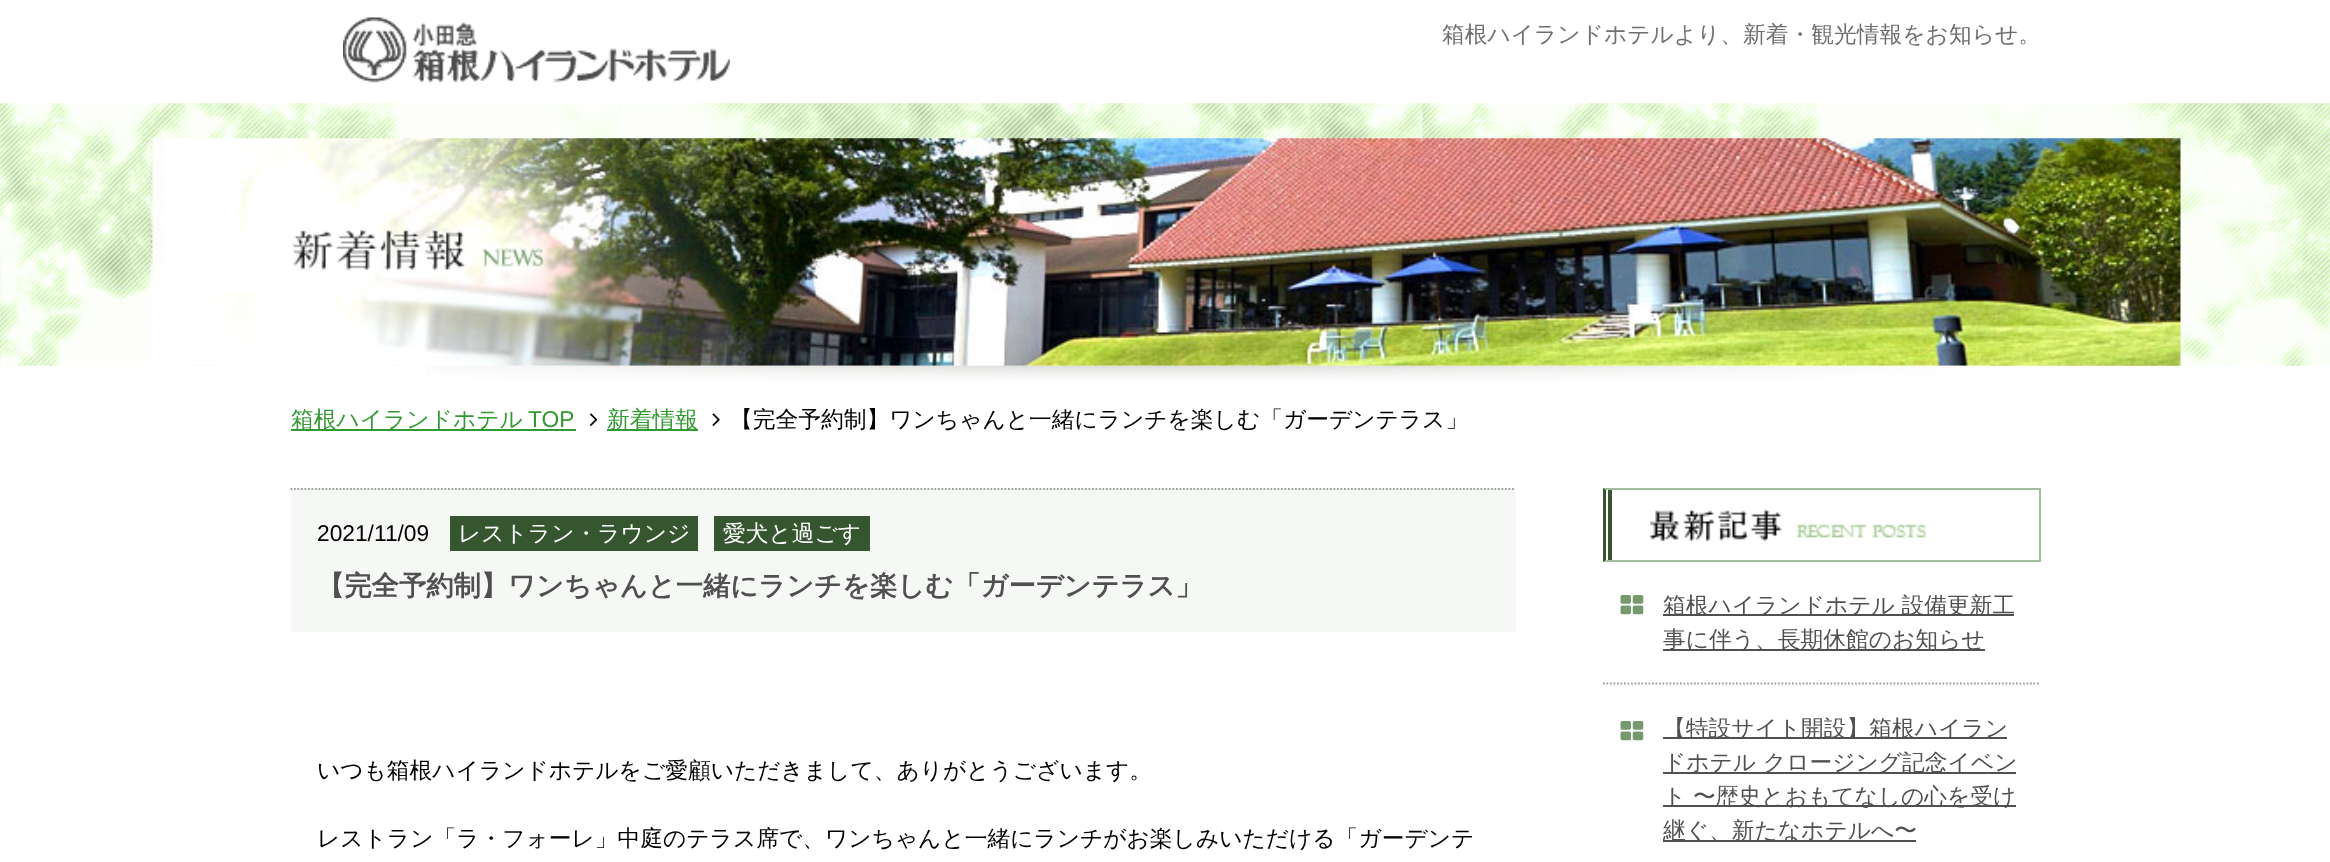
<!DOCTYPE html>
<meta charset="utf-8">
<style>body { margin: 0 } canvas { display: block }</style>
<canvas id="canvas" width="2330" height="862"></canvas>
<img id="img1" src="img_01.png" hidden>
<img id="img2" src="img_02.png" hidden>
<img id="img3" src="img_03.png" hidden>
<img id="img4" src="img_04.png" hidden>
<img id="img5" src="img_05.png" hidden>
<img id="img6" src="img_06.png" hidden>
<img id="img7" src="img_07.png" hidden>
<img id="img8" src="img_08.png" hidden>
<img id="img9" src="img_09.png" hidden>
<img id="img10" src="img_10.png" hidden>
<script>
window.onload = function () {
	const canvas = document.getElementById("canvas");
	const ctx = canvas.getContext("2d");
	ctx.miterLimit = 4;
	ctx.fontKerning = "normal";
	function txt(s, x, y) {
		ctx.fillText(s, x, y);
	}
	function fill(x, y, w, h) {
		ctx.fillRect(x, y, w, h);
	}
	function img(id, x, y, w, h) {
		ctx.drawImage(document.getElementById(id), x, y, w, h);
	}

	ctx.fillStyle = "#FFFFFF";
	fill(0, 0, 2330, 862);
	img("img1", 343, 17, 387, 66);
	img("img2", 0, 103, 2330, 263);
	img("img3", 0, 103, 2330, 263);
	img("img4", 150, 138, 2031, 228);
	img("img5", 292, 226, 254, 44);
	img("img6", 426, 365, 1562, 16);
	ctx.fillStyle = "#339933";
	fill(291, 429, 285, 2);
	img("img7", 590, 413, 8, 13);
	fill(607, 429, 91, 2);
	img("img8", 712, 413, 8, 13);
	ctx.fillStyle = "#F5F8F4";
	fill(291, 488, 1225, 144);
	ctx.beginPath();
	ctx.moveTo(290.5, 489);
	ctx.lineTo(1515.5, 489);
	ctx.strokeStyle = "#9F9F9F";
	ctx.lineWidth = 1.8;
	ctx.setLineDash([1.75, 1.75]);
	ctx.stroke();
	ctx.fillStyle = "#36562F";
	fill(450, 516, 248, 35);
	fill(714, 516, 156, 35);
	ctx.fillStyle = "#A2BC9E";
	ctx.beginPath();
	ctx.moveTo(1603, 488);
	ctx.lineTo(2040, 488);
	ctx.lineTo(2039, 490);
	ctx.lineTo(1606, 490);
	ctx.closePath();
	ctx.fill();
	fill(2039, 488, 2, 74);
	ctx.beginPath();
	ctx.moveTo(2040, 562);
	ctx.lineTo(1603, 562);
	ctx.lineTo(1606, 560);
	ctx.lineTo(2039, 560);
	ctx.closePath();
	ctx.fill();
	ctx.fillStyle = "#36562F";
	ctx.beginPath();
	ctx.moveTo(1603, 562);
	ctx.lineTo(1603, 488);
	ctx.lineTo(1606, 490);
	ctx.lineTo(1606, 560);
	ctx.closePath();
	ctx.fill();
	fill(1608, 490, 4, 70);
	img("img9", 1650, 509, 277, 32);
	ctx.beginPath();
	ctx.moveTo(1603, 683.5);
	ctx.lineTo(2040.5, 683.5);
	ctx.strokeStyle = "#9D9D9D";
	ctx.stroke();
	img("img10", 1620, 595, 24, 20);
	ctx.fillStyle = "#505050";
	fill(1663, 614, 351, 2);
	fill(1663, 649, 322, 2);
	img("img10", 1620, 721, 24, 20);
	fill(1663, 737, 344, 2);
	fill(1663, 772, 353, 2);
	fill(1663, 805, 353, 2);
	fill(1663, 840, 253, 2);
	ctx.font = "500 22.75px WenQuanYi Zen Hei";
	ctx.fillStyle = "#6F6F6F";
	txt("箱根ハイランドホテルより、新着・観光情報をお知らせ。", 1442, 42);
	ctx.fillStyle = "#339933";
	txt("箱根ハイランドホテル", 291, 427);
	ctx.font = "22.75px Liberation Sans";
	txt("TOP", 528, 427);
	ctx.font = "500 22.75px WenQuanYi Zen Hei";
	txt("新着情報", 607, 427);
	ctx.fillStyle = "#000000";
	txt("【完全予約制】ワンちゃんと一緒にランチを楽しむ「ガーデンテラス」", 730, 427);
	ctx.font = "22.75px Liberation Sans";
	txt("2021/11/09", 317, 541);
	ctx.font = "500 22.75px WenQuanYi Zen Hei";
	ctx.fillStyle = "#FFFFFF";
	txt("レストラン・ラウンジ", 458, 541);
	txt("愛犬と過ごす", 723, 541);
	ctx.font = "bold 27.3px WenQuanYi Zen Hei";
	ctx.fillStyle = "#505050";
	txt("【完全予約制】ワンちゃんと一緒にランチを楽しむ「ガーデンテラス」", 317, 595);
	ctx.font = "500 22.75px WenQuanYi Zen Hei";
	ctx.fillStyle = "#000000";
	txt("いつも箱根ハイランドホテルをご愛顧いただきまして、ありがとうございます。", 317, 778);
	txt("レストラン「ラ・フォーレ」中庭のテラス席で、ワンちゃんと一緒にランチがお楽しみいただける「ガーデンテ", 317, 846);
	ctx.fillStyle = "#505050";
	txt("箱根ハイランドホテル 設備更新工", 1663, 613);
	txt("事に伴う、長期休館のお知らせ", 1663, 647);
	txt("【特設サイト開設】箱根ハイラン", 1663, 736);
	txt("ドホテル クロージング記念イベン", 1663, 770);
	txt("ト 〜歴史とおもてなしの心を受け", 1663, 804);
	txt("継ぐ、新たなホテルへ〜", 1663, 838);
};
</script>
